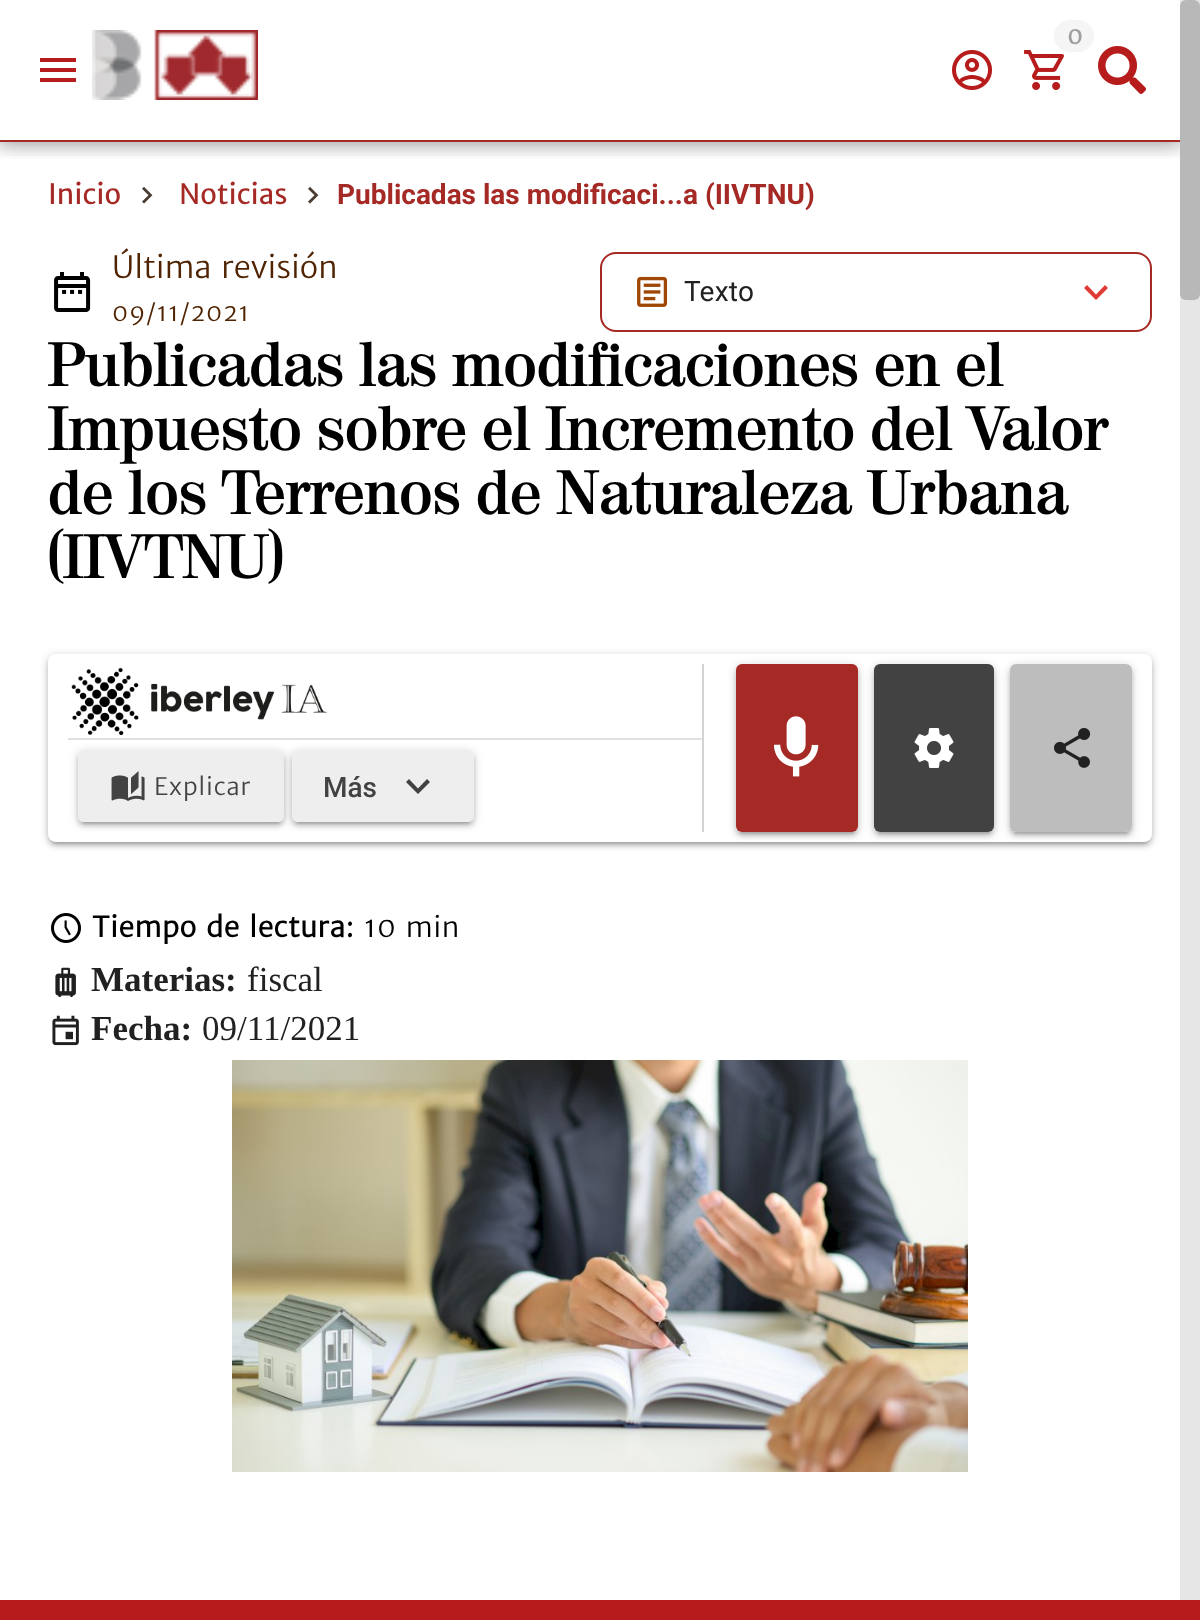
<!DOCTYPE html>
<meta charset="utf-8">
<style>body { margin: 0 } canvas { display: block }</style>
<canvas id="canvas" width="1200" height="1620"></canvas>
<img id="img1" src="img_01.png" hidden>
<img id="img2" src="img_02.png" hidden>
<img id="img3" src="img_03.png" hidden>
<img id="img4" src="img_04.png" hidden>
<img id="img5" src="img_05.png" hidden>
<img id="img6" src="img_06.png" hidden>
<img id="img7" src="img_07.png" hidden>
<img id="img8" src="img_08.png" hidden>
<img id="img9" src="img_09.png" hidden>
<img id="img10" src="img_10.png" hidden>
<img id="img11" src="img_11.png" hidden>
<img id="img12" src="img_12.png" hidden>
<img id="img13" src="img_13.png" hidden>
<img id="img14" src="img_14.png" hidden>
<img id="img15" src="img_15.png" hidden>
<img id="img16" src="img_16.png" hidden>
<script>
window.onload = function () {
	const canvas = document.getElementById("canvas");
	const ctx = canvas.getContext("2d");
	ctx.miterLimit = 4;
	ctx.fontKerning = "normal";
	function txt(s, x, y) {
		ctx.fillText(s, x, y);
	}
	function fill(x, y, w, h) {
		ctx.fillRect(x, y, w, h);
	}
	function round(x, y, w, h, r) {
		ctx.beginPath();
		ctx.roundRect(x, y, w, h, r);
		ctx.fill();
	}
	function img(id, x, y, w, h) {
		ctx.drawImage(document.getElementById(id), x, y, w, h);
	}

	ctx.fillStyle = "#FFFFFF";
	fill(0, 0, 1200, 1620);
	ctx.fillStyle = "#E6E6E6";
	fill(1180, 0, 20, 1600);
	ctx.fillStyle = "#A52925";
	fill(0, 140, 1180, 2);
	ctx.fillStyle = "#B71C1C";
	ctx.beginPath();
	ctx.moveTo(40, 82);
	ctx.lineTo(76, 82);
	ctx.lineTo(76, 78);
	ctx.lineTo(40, 78);
	ctx.closePath();
	ctx.moveTo(40, 72);
	ctx.lineTo(76, 72);
	ctx.lineTo(76, 68);
	ctx.lineTo(40, 68);
	ctx.closePath();
	ctx.moveTo(40, 58);
	ctx.lineTo(40, 62);
	ctx.lineTo(76, 62);
	ctx.lineTo(76, 58);
	ctx.closePath();
	ctx.fill();
	img("img1", 92, 30, 166, 70);
	img("img2", 1024, 50, 40, 40);
	ctx.fillStyle = "#F5F5F5";
	round(1054, 20, 40, 32, 16);
	img("img3", 952, 50, 40, 40);
	img("img4", 1098, 46, 48, 48);
	ctx.fillStyle = "#B8B8B8";
	round(1180, 0, 20, 300, 6);
	ctx.save();
	ctx.beginPath();
	ctx.rect(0, 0, 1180, 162);
	ctx.clip();
	ctx.beginPath();
	ctx.rect(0, 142, 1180, 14);
	ctx.clip();
	ctx.fillStyle = "rgba(0, 0, 0, 0.24)";
	ctx.filter = "blur(10px)";
	ctx.beginPath();
	ctx.rect(0, 0, 1180, 142);
	ctx.fill();
	ctx.filter = "none";
	ctx.restore();
	ctx.save();
	ctx.beginPath();
	ctx.rect(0, 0, 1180, 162);
	ctx.clip();
	ctx.beginPath();
	ctx.rect(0, 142, 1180, 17);
	ctx.clip();
	ctx.fillStyle = "rgba(0, 0, 0, 0.2)";
	ctx.filter = "blur(10px)";
	ctx.beginPath();
	ctx.rect(-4, -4, 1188, 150);
	ctx.fill();
	ctx.filter = "none";
	ctx.restore();
	img("img5", 142, 187, 11, 17);
	img("img5", 308, 187, 11, 17);
	img("img6", 54, 272, 37, 40);
	ctx.beginPath();
	ctx.roundRect(601, 253, 550, 78, 15);
	ctx.strokeStyle = "#A52925";
	ctx.lineWidth = 2;
	ctx.stroke();
	img("img7", 637, 276, 31, 31);
	ctx.fillStyle = "#DF3B36";
	ctx.beginPath();
	ctx.moveTo(1087, 285);
	ctx.lineTo(1096, 294.5);
	ctx.lineTo(1105, 285);
	ctx.lineTo(1108, 288);
	ctx.lineTo(1096, 300);
	ctx.lineTo(1084, 288);
	ctx.closePath();
	ctx.fill();
	ctx.fillStyle = "rgba(0, 0, 0, 0.12)";
	ctx.filter = "blur(1px)";
	ctx.beginPath();
	ctx.roundRect(52, 664, 1096, 180, 4);
	ctx.fill();
	ctx.filter = "none";
	ctx.fillStyle = "rgba(0, 0, 0, 0.14)";
	ctx.filter = "blur(2px)";
	ctx.beginPath();
	ctx.roundRect(48, 658, 1104, 188, 8);
	ctx.fill();
	ctx.filter = "none";
	ctx.fillStyle = "rgba(0, 0, 0, 0.2)";
	ctx.filter = "blur(5px)";
	ctx.beginPath();
	ctx.roundRect(48, 656, 1104, 188, 8);
	ctx.fill();
	ctx.filter = "none";
	ctx.fillStyle = "#FFFFFF";
	round(48, 654, 1104, 188, 8);
	ctx.fillStyle = "#D3D3D3";
	fill(702, 664, 2, 168);
	img("img8", 71, 667, 256, 68);
	ctx.fillStyle = "#E0E0E0";
	fill(68, 738, 634, 2);
	ctx.fillStyle = "#EEEEEE";
	round(78, 750, 206, 72, 6);
	ctx.save();
	ctx.beginPath();
	ctx.rect(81, 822, 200, 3);
	ctx.clip();
	ctx.fillStyle = "rgba(0, 0, 0, 0.12)";
	ctx.filter = "blur(1px)";
	ctx.beginPath();
	ctx.roundRect(82, 760, 198, 64, 2);
	ctx.fill();
	ctx.filter = "none";
	ctx.restore();
	ctx.save();
	ctx.beginPath();
	ctx.moveTo(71, 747);
	ctx.lineTo(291, 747);
	ctx.lineTo(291, 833);
	ctx.lineTo(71, 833);
	ctx.closePath();
	ctx.moveTo(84, 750);
	ctx.lineTo(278, 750);
	ctx.bezierCurveTo(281.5, 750, 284, 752.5, 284, 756);
	ctx.lineTo(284, 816);
	ctx.bezierCurveTo(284, 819.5, 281.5, 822, 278, 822);
	ctx.lineTo(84, 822);
	ctx.bezierCurveTo(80.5, 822, 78, 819.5, 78, 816);
	ctx.lineTo(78, 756);
	ctx.bezierCurveTo(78, 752.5, 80.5, 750, 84, 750);
	ctx.closePath();
	ctx.clip("evenodd");
	ctx.fillStyle = "rgba(0, 0, 0, 0.14)";
	ctx.filter = "blur(2px)";
	ctx.beginPath();
	ctx.roundRect(78, 754, 206, 72, 6);
	ctx.fill();
	ctx.filter = "none";
	ctx.restore();
	ctx.save();
	ctx.beginPath();
	ctx.moveTo(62, 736);
	ctx.lineTo(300, 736);
	ctx.lineTo(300, 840);
	ctx.lineTo(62, 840);
	ctx.closePath();
	ctx.moveTo(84, 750);
	ctx.lineTo(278, 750);
	ctx.bezierCurveTo(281.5, 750, 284, 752.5, 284, 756);
	ctx.lineTo(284, 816);
	ctx.bezierCurveTo(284, 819.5, 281.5, 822, 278, 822);
	ctx.lineTo(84, 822);
	ctx.bezierCurveTo(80.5, 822, 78, 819.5, 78, 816);
	ctx.lineTo(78, 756);
	ctx.bezierCurveTo(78, 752.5, 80.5, 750, 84, 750);
	ctx.closePath();
	ctx.clip("evenodd");
	ctx.fillStyle = "rgba(0, 0, 0, 0.2)";
	ctx.filter = "blur(5px)";
	ctx.beginPath();
	ctx.roundRect(78, 752, 206, 72, 6);
	ctx.fill();
	ctx.filter = "none";
	ctx.restore();
	img("img9", 111, 771, 34, 30);
	round(292, 750, 182, 72, 6);
	ctx.save();
	ctx.beginPath();
	ctx.rect(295, 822, 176, 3);
	ctx.clip();
	ctx.fillStyle = "rgba(0, 0, 0, 0.12)";
	ctx.filter = "blur(1px)";
	ctx.beginPath();
	ctx.roundRect(296, 760, 174, 64, 2);
	ctx.fill();
	ctx.filter = "none";
	ctx.restore();
	ctx.save();
	ctx.beginPath();
	ctx.moveTo(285, 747);
	ctx.lineTo(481, 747);
	ctx.lineTo(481, 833);
	ctx.lineTo(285, 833);
	ctx.closePath();
	ctx.moveTo(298, 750);
	ctx.lineTo(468, 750);
	ctx.bezierCurveTo(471.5, 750, 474, 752.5, 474, 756);
	ctx.lineTo(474, 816);
	ctx.bezierCurveTo(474, 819.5, 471.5, 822, 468, 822);
	ctx.lineTo(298, 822);
	ctx.bezierCurveTo(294.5, 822, 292, 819.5, 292, 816);
	ctx.lineTo(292, 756);
	ctx.bezierCurveTo(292, 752.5, 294.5, 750, 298, 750);
	ctx.closePath();
	ctx.clip("evenodd");
	ctx.fillStyle = "rgba(0, 0, 0, 0.14)";
	ctx.filter = "blur(2px)";
	ctx.beginPath();
	ctx.roundRect(292, 754, 182, 72, 6);
	ctx.fill();
	ctx.filter = "none";
	ctx.restore();
	ctx.save();
	ctx.beginPath();
	ctx.moveTo(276, 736);
	ctx.lineTo(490, 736);
	ctx.lineTo(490, 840);
	ctx.lineTo(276, 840);
	ctx.closePath();
	ctx.moveTo(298, 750);
	ctx.lineTo(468, 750);
	ctx.bezierCurveTo(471.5, 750, 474, 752.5, 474, 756);
	ctx.lineTo(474, 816);
	ctx.bezierCurveTo(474, 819.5, 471.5, 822, 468, 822);
	ctx.lineTo(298, 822);
	ctx.bezierCurveTo(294.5, 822, 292, 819.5, 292, 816);
	ctx.lineTo(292, 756);
	ctx.bezierCurveTo(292, 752.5, 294.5, 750, 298, 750);
	ctx.closePath();
	ctx.clip("evenodd");
	ctx.fillStyle = "rgba(0, 0, 0, 0.2)";
	ctx.filter = "blur(5px)";
	ctx.beginPath();
	ctx.roundRect(292, 752, 182, 72, 6);
	ctx.fill();
	ctx.filter = "none";
	ctx.restore();
	ctx.fillStyle = "#424242";
	ctx.beginPath();
	ctx.moveTo(409, 779);
	ctx.lineTo(418, 788.5);
	ctx.lineTo(427, 779);
	ctx.lineTo(430, 782);
	ctx.lineTo(418, 794);
	ctx.lineTo(406, 782);
	ctx.closePath();
	ctx.fill();
	ctx.fillStyle = "#A52925";
	round(736, 664, 122, 168, 6);
	ctx.save();
	ctx.beginPath();
	ctx.rect(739, 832, 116, 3);
	ctx.clip();
	ctx.fillStyle = "rgba(0, 0, 0, 0.12)";
	ctx.filter = "blur(1px)";
	ctx.beginPath();
	ctx.roundRect(740, 674, 114, 160, 2);
	ctx.fill();
	ctx.filter = "none";
	ctx.restore();
	ctx.save();
	ctx.beginPath();
	ctx.moveTo(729, 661);
	ctx.lineTo(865, 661);
	ctx.lineTo(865, 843);
	ctx.lineTo(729, 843);
	ctx.closePath();
	ctx.moveTo(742, 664);
	ctx.lineTo(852, 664);
	ctx.bezierCurveTo(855.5, 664, 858, 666.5, 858, 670);
	ctx.lineTo(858, 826);
	ctx.bezierCurveTo(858, 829.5, 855.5, 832, 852, 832);
	ctx.lineTo(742, 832);
	ctx.bezierCurveTo(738.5, 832, 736, 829.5, 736, 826);
	ctx.lineTo(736, 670);
	ctx.bezierCurveTo(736, 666.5, 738.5, 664, 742, 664);
	ctx.closePath();
	ctx.clip("evenodd");
	ctx.fillStyle = "rgba(0, 0, 0, 0.14)";
	ctx.filter = "blur(2px)";
	ctx.beginPath();
	ctx.roundRect(736, 668, 122, 168, 6);
	ctx.fill();
	ctx.filter = "none";
	ctx.restore();
	ctx.save();
	ctx.beginPath();
	ctx.moveTo(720, 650);
	ctx.lineTo(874, 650);
	ctx.lineTo(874, 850);
	ctx.lineTo(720, 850);
	ctx.closePath();
	ctx.moveTo(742, 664);
	ctx.lineTo(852, 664);
	ctx.bezierCurveTo(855.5, 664, 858, 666.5, 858, 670);
	ctx.lineTo(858, 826);
	ctx.bezierCurveTo(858, 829.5, 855.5, 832, 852, 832);
	ctx.lineTo(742, 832);
	ctx.bezierCurveTo(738.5, 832, 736, 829.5, 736, 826);
	ctx.lineTo(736, 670);
	ctx.bezierCurveTo(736, 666.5, 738.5, 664, 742, 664);
	ctx.closePath();
	ctx.clip("evenodd");
	ctx.fillStyle = "rgba(0, 0, 0, 0.2)";
	ctx.filter = "blur(5px)";
	ctx.beginPath();
	ctx.roundRect(736, 666, 122, 168, 6);
	ctx.fill();
	ctx.filter = "none";
	ctx.restore();
	img("img10", 774, 716, 45, 61);
	ctx.fillStyle = "#424242";
	round(874, 664, 120, 168, 6);
	ctx.save();
	ctx.beginPath();
	ctx.rect(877, 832, 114, 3);
	ctx.clip();
	ctx.fillStyle = "rgba(0, 0, 0, 0.12)";
	ctx.filter = "blur(1px)";
	ctx.beginPath();
	ctx.roundRect(878, 674, 112, 160, 2);
	ctx.fill();
	ctx.filter = "none";
	ctx.restore();
	ctx.save();
	ctx.beginPath();
	ctx.moveTo(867, 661);
	ctx.lineTo(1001, 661);
	ctx.lineTo(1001, 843);
	ctx.lineTo(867, 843);
	ctx.closePath();
	ctx.moveTo(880, 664);
	ctx.lineTo(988, 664);
	ctx.bezierCurveTo(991.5, 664, 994, 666.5, 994, 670);
	ctx.lineTo(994, 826);
	ctx.bezierCurveTo(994, 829.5, 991.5, 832, 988, 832);
	ctx.lineTo(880, 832);
	ctx.bezierCurveTo(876.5, 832, 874, 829.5, 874, 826);
	ctx.lineTo(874, 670);
	ctx.bezierCurveTo(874, 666.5, 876.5, 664, 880, 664);
	ctx.closePath();
	ctx.clip("evenodd");
	ctx.fillStyle = "rgba(0, 0, 0, 0.14)";
	ctx.filter = "blur(2px)";
	ctx.beginPath();
	ctx.roundRect(874, 668, 120, 168, 6);
	ctx.fill();
	ctx.filter = "none";
	ctx.restore();
	ctx.save();
	ctx.beginPath();
	ctx.moveTo(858, 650);
	ctx.lineTo(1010, 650);
	ctx.lineTo(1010, 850);
	ctx.lineTo(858, 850);
	ctx.closePath();
	ctx.moveTo(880, 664);
	ctx.lineTo(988, 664);
	ctx.bezierCurveTo(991.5, 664, 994, 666.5, 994, 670);
	ctx.lineTo(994, 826);
	ctx.bezierCurveTo(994, 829.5, 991.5, 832, 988, 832);
	ctx.lineTo(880, 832);
	ctx.bezierCurveTo(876.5, 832, 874, 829.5, 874, 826);
	ctx.lineTo(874, 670);
	ctx.bezierCurveTo(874, 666.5, 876.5, 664, 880, 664);
	ctx.closePath();
	ctx.clip("evenodd");
	ctx.fillStyle = "rgba(0, 0, 0, 0.2)";
	ctx.filter = "blur(5px)";
	ctx.beginPath();
	ctx.roundRect(874, 666, 120, 168, 6);
	ctx.fill();
	ctx.filter = "none";
	ctx.restore();
	img("img11", 914, 728, 40, 40);
	ctx.fillStyle = "#BDBDBD";
	round(1010, 664, 122, 168, 6);
	ctx.save();
	ctx.beginPath();
	ctx.rect(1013, 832, 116, 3);
	ctx.clip();
	ctx.fillStyle = "rgba(0, 0, 0, 0.12)";
	ctx.filter = "blur(1px)";
	ctx.beginPath();
	ctx.roundRect(1014, 674, 114, 160, 2);
	ctx.fill();
	ctx.filter = "none";
	ctx.restore();
	ctx.save();
	ctx.beginPath();
	ctx.moveTo(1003, 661);
	ctx.lineTo(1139, 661);
	ctx.lineTo(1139, 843);
	ctx.lineTo(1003, 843);
	ctx.closePath();
	ctx.moveTo(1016, 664);
	ctx.lineTo(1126, 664);
	ctx.bezierCurveTo(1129.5, 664, 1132, 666.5, 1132, 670);
	ctx.lineTo(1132, 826);
	ctx.bezierCurveTo(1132, 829.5, 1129.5, 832, 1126, 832);
	ctx.lineTo(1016, 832);
	ctx.bezierCurveTo(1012.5, 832, 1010, 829.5, 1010, 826);
	ctx.lineTo(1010, 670);
	ctx.bezierCurveTo(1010, 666.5, 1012.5, 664, 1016, 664);
	ctx.closePath();
	ctx.clip("evenodd");
	ctx.fillStyle = "rgba(0, 0, 0, 0.14)";
	ctx.filter = "blur(2px)";
	ctx.beginPath();
	ctx.roundRect(1010, 668, 122, 168, 6);
	ctx.fill();
	ctx.filter = "none";
	ctx.restore();
	ctx.save();
	ctx.beginPath();
	ctx.moveTo(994, 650);
	ctx.lineTo(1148, 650);
	ctx.lineTo(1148, 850);
	ctx.lineTo(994, 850);
	ctx.closePath();
	ctx.moveTo(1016, 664);
	ctx.lineTo(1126, 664);
	ctx.bezierCurveTo(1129.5, 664, 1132, 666.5, 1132, 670);
	ctx.lineTo(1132, 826);
	ctx.bezierCurveTo(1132, 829.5, 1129.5, 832, 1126, 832);
	ctx.lineTo(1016, 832);
	ctx.bezierCurveTo(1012.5, 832, 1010, 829.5, 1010, 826);
	ctx.lineTo(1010, 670);
	ctx.bezierCurveTo(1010, 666.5, 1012.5, 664, 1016, 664);
	ctx.closePath();
	ctx.clip("evenodd");
	ctx.fillStyle = "rgba(0, 0, 0, 0.2)";
	ctx.filter = "blur(5px)";
	ctx.beginPath();
	ctx.roundRect(1010, 666, 122, 168, 6);
	ctx.fill();
	ctx.filter = "none";
	ctx.restore();
	img("img12", 1054, 728, 37, 40);
	img("img13", 51, 913, 30, 30);
	img("img14", 55, 967, 21, 31);
	img("img15", 52, 1015, 27, 31);
	img("img16", 232, 1060, 736, 412);
	ctx.fillStyle = "#B71C1C";
	fill(0, 1600, 1200, 20);
	ctx.font = "24px 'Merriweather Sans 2'";
	ctx.fillStyle = "#9E9E9E";
	txt("0", 1067, 44);
	ctx.font = "28px 'Merriweather Sans 2'";
	ctx.fillStyle = "#A52925";
	txt("Inicio", 48, 204);
	txt("Noticias", 179, 204);
	ctx.font = "bold 28px Roboto";
	txt("Publicadas las modificaci...a (IIVTNU)", 337, 204);
	ctx.font = "30.75px Merriweather Sans";
	ctx.fillStyle = "#502402";
	txt("Última revisión", 112, 278);
	ctx.letterSpacing = "0.75px";
	ctx.font = "24px Merriweather Sans";
	txt("09/11/2021", 112, 321);
	ctx.letterSpacing = "0.25px";
	ctx.font = "28px Roboto";
	ctx.fillStyle = "#212121";
	txt("Texto", 684, 301);
	ctx.letterSpacing = "0px";
	ctx.font = "bold 60.75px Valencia";
	ctx.fillStyle = "#000000";
	txt("Publicadas las modificaciones en el", 48, 386);
	txt("Impuesto sobre el Incremento del Valor", 48, 450);
	txt("de los Terrenos de Naturaleza Urbana", 48, 514);
	txt("(IIVTNU)", 48, 578);
	ctx.letterSpacing = "0.75px";
	ctx.font = "24px Merriweather Sans";
	ctx.fillStyle = "#424242";
	txt("Explicar", 154, 795);
	ctx.letterSpacing = "0px";
	ctx.font = "500 28px Roboto";
	txt("Más", 323, 797);
	ctx.letterSpacing = "0.5px";
	ctx.font = "bold 28px Merriweather Sans";
	ctx.fillStyle = "#000000";
	txt("Tiempo de lectura:", 92, 937);
	ctx.font = "28px Merriweather Sans";
	txt("10 min", 364, 937);
	ctx.letterSpacing = "0px";
	ctx.font = "bold 35px Liberation Serif";
	ctx.fillStyle = "#212121";
	txt("Materias:", 91, 991);
	ctx.font = "35px Liberation Serif";
	txt("fiscal", 247, 991);
	ctx.font = "bold 35px Liberation Serif";
	txt("Fecha:", 91, 1040);
	ctx.font = "35px Liberation Serif";
	txt("09/11/2021", 202, 1040);
};
</script>
